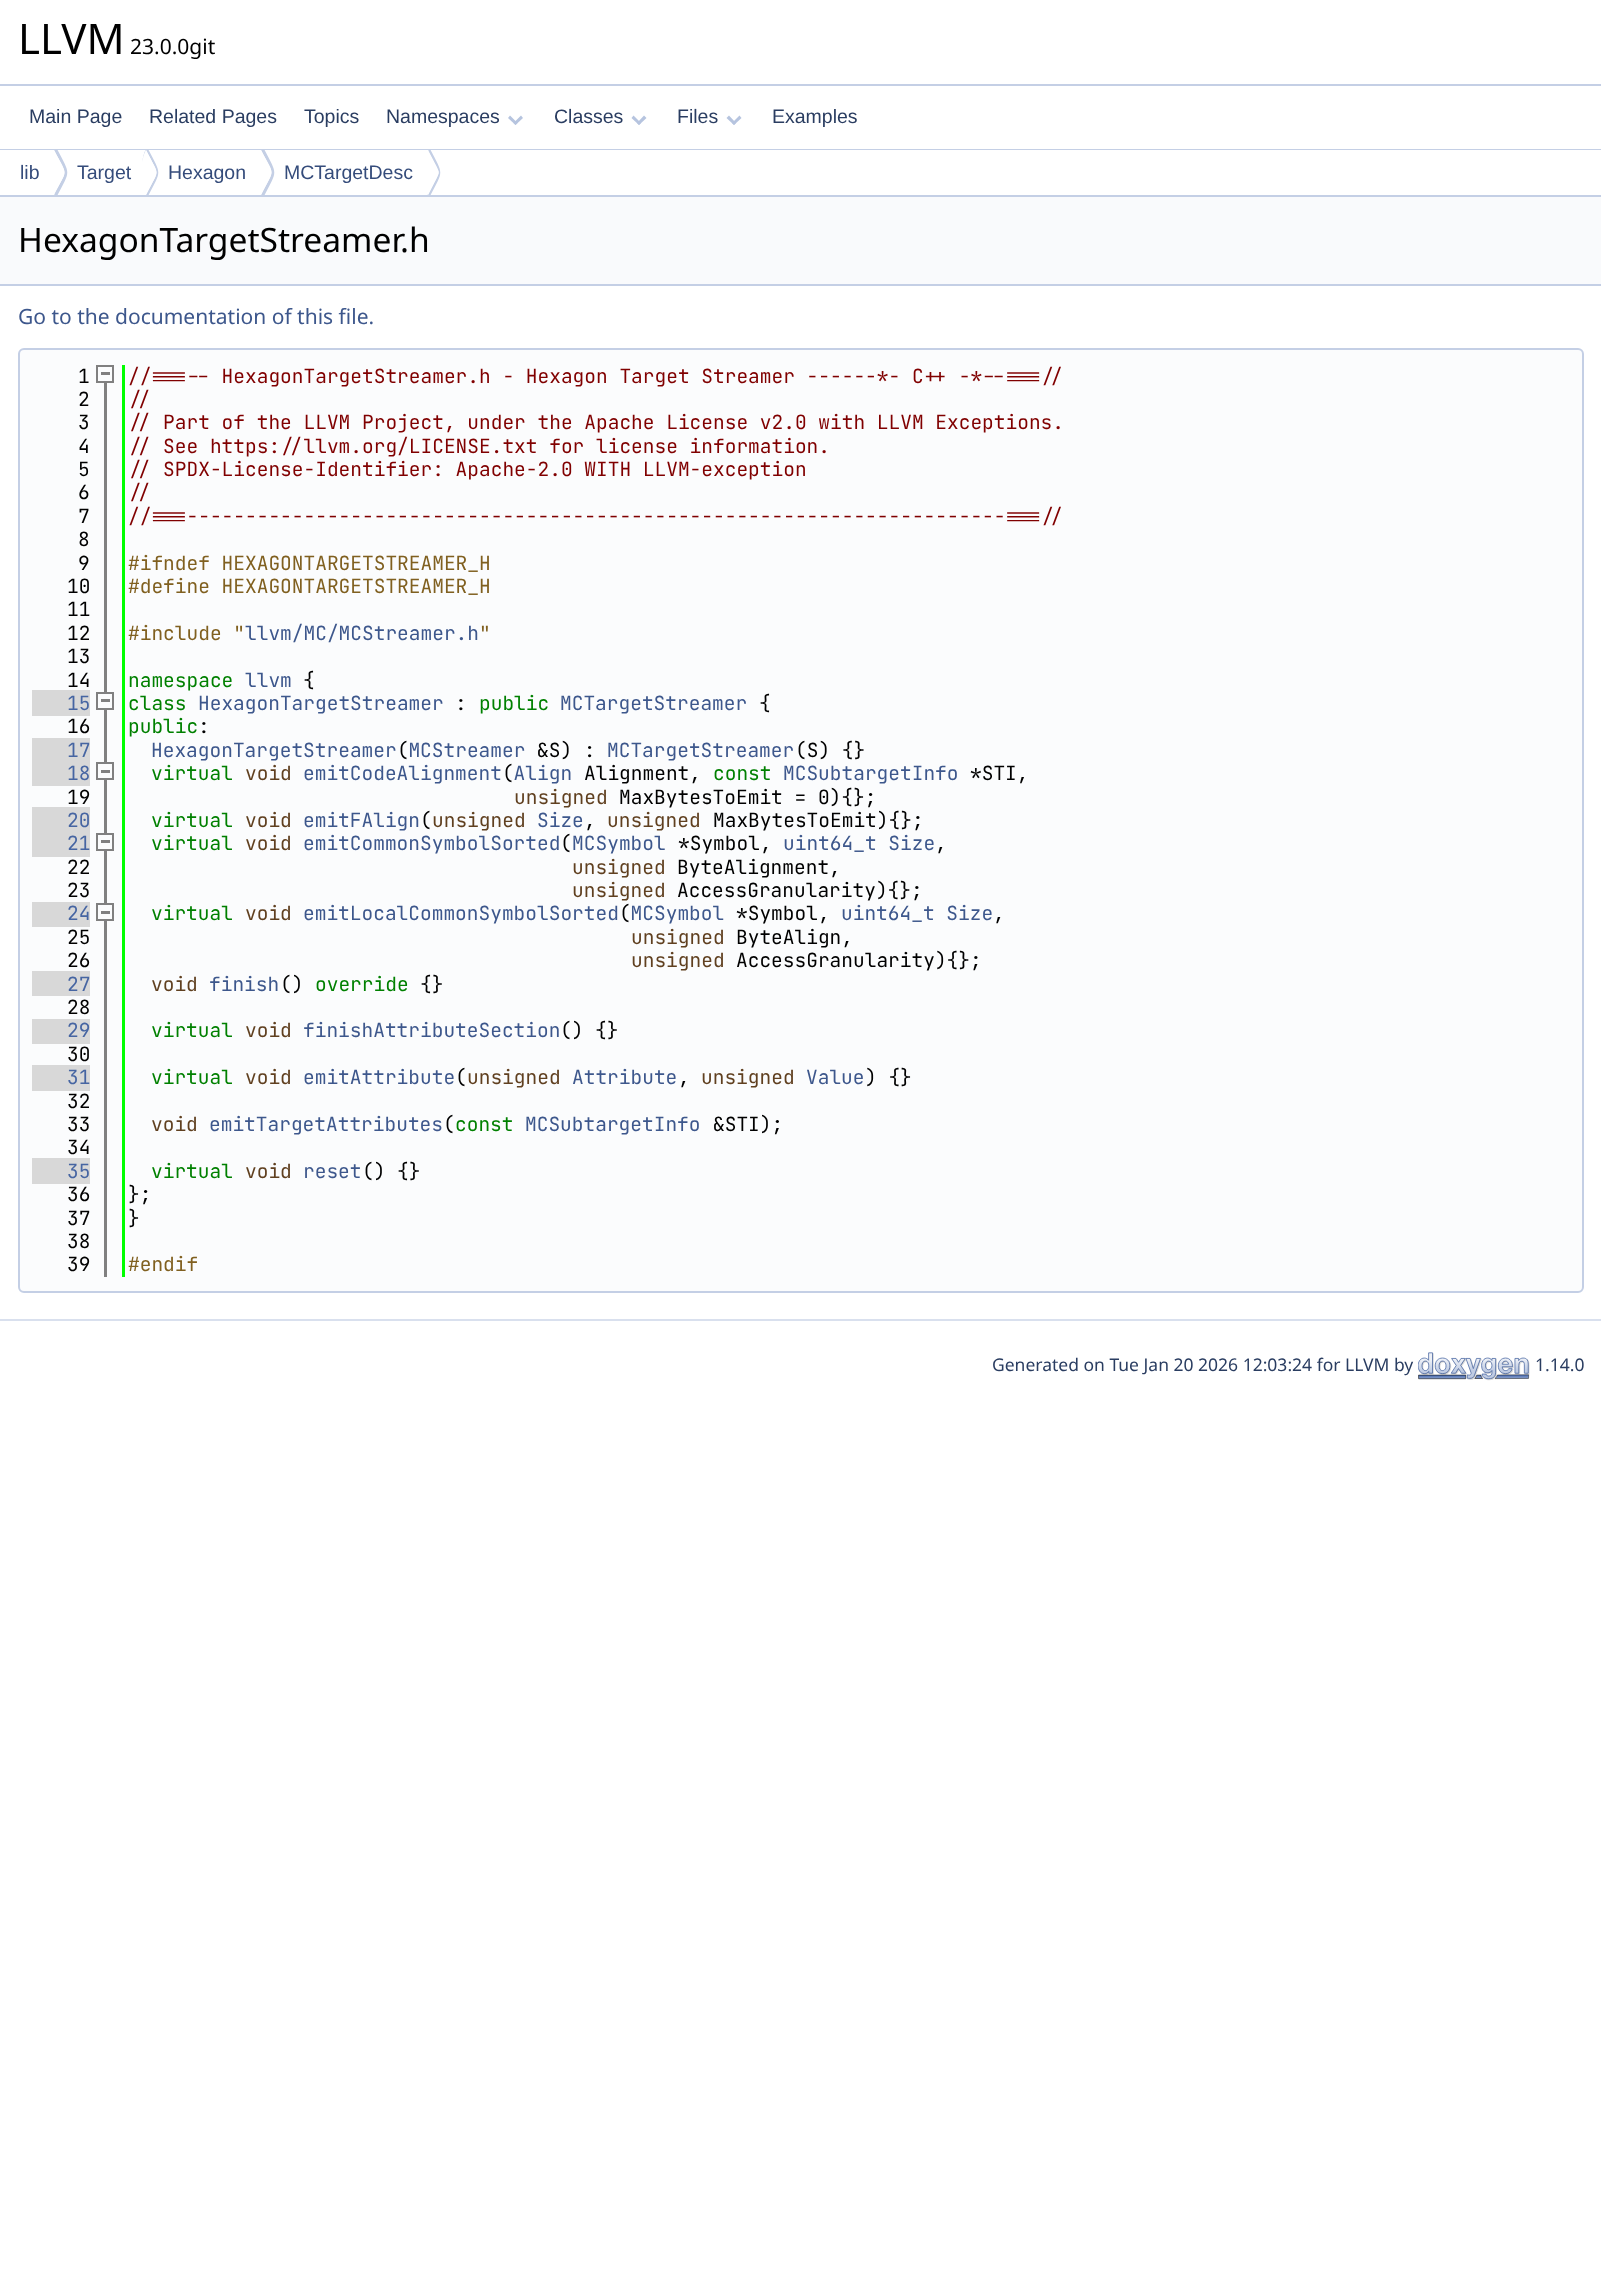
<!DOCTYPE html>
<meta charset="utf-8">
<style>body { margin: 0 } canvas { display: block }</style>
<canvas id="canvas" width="1601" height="2272"></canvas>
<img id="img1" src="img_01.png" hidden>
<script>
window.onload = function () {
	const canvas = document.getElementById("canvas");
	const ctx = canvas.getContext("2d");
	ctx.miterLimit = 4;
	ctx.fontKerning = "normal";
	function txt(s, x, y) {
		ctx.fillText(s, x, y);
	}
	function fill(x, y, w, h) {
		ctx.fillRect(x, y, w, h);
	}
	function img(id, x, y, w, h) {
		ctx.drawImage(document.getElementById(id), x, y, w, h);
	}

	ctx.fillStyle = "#FFFFFF";
	fill(0, 0, 1601, 2272);
	ctx.fillStyle = "#C4CFE5";
	fill(0, 84, 1601, 2);
	fill(0, 149, 1601, 1);
	ctx.fillStyle = "#B6C4DF";
	ctx.beginPath();
	ctx.moveTo(521, 115.5);
	ctx.lineTo(523, 118);
	ctx.lineTo(515.5, 125);
	ctx.lineTo(513.5, 123);
	ctx.closePath();
	ctx.fill();
	ctx.beginPath();
	ctx.moveTo(510, 115.5);
	ctx.lineTo(517.5, 123);
	ctx.lineTo(515.5, 125);
	ctx.lineTo(508, 118);
	ctx.closePath();
	ctx.fill();
	ctx.beginPath();
	ctx.moveTo(644, 115.5);
	ctx.lineTo(646.5, 118);
	ctx.lineTo(639, 125);
	ctx.lineTo(637, 123);
	ctx.closePath();
	ctx.fill();
	ctx.beginPath();
	ctx.moveTo(633.5, 115.5);
	ctx.lineTo(641, 123);
	ctx.lineTo(639, 125);
	ctx.lineTo(631.5, 118);
	ctx.closePath();
	ctx.fill();
	ctx.beginPath();
	ctx.moveTo(739.5, 115.5);
	ctx.lineTo(741.5, 118);
	ctx.lineTo(734, 125);
	ctx.lineTo(732, 123);
	ctx.closePath();
	ctx.fill();
	ctx.beginPath();
	ctx.moveTo(729, 115.5);
	ctx.lineTo(736, 123);
	ctx.lineTo(734, 125);
	ctx.lineTo(726.5, 118);
	ctx.closePath();
	ctx.fill();
	ctx.fillStyle = "#C4CFE5";
	fill(0, 195, 1601, 2);
	ctx.save();
	ctx.beginPath();
	ctx.rect(0, 150, 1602, 45);
	ctx.clip();
	ctx.beginPath();
	ctx.moveTo(56, 147);
	ctx.lineTo(54, 150);
	ctx.bezierCurveTo(68, 177, 68, 168, 54, 194);
	ctx.lineTo(56, 198);
	ctx.bezierCurveTo(71, 169, 71, 176, 56, 147);
	ctx.closePath();
	ctx.fill();
	ctx.restore();
	ctx.fillStyle = "#FFFFFF";
	ctx.beginPath();
	ctx.moveTo(54, 150);
	ctx.bezierCurveTo(68, 178, 68, 167, 54, 195);
	ctx.bezierCurveTo(48, 183, 48, 162, 54, 150);
	ctx.closePath();
	ctx.fill();
	ctx.save();
	ctx.beginPath();
	ctx.rect(0, 150, 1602, 45);
	ctx.clip();
	ctx.fillStyle = "#C4CFE5";
	ctx.beginPath();
	ctx.moveTo(147, 147);
	ctx.bezierCurveTo(144, 152, 143, 157, 142, 163);
	ctx.bezierCurveTo(143, 158, 144, 154, 146, 150);
	ctx.bezierCurveTo(160, 178, 160, 167, 146, 195);
	ctx.lineTo(147, 198);
	ctx.bezierCurveTo(162, 169, 162, 176, 147, 147);
	ctx.closePath();
	ctx.fill();
	ctx.restore();
	ctx.beginPath();
	ctx.moveTo(146, 150);
	ctx.bezierCurveTo(160, 178, 160, 167, 146, 195);
	ctx.bezierCurveTo(140, 183, 140, 162, 146, 150);
	ctx.closePath();
	ctx.fill();
	ctx.save();
	ctx.beginPath();
	ctx.rect(0, 150, 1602, 45);
	ctx.clip();
	ctx.fillStyle = "#C4CFE5";
	ctx.beginPath();
	ctx.moveTo(263, 147);
	ctx.lineTo(261, 150);
	ctx.bezierCurveTo(275, 177, 275, 167, 261, 195);
	ctx.lineTo(263, 198);
	ctx.bezierCurveTo(278, 169, 278, 176, 263, 147);
	ctx.closePath();
	ctx.fill();
	ctx.restore();
	ctx.beginPath();
	ctx.moveTo(261, 150);
	ctx.bezierCurveTo(275, 178, 275, 167, 261, 195);
	ctx.bezierCurveTo(255, 183, 255, 162, 261, 150);
	ctx.closePath();
	ctx.fill();
	ctx.save();
	ctx.beginPath();
	ctx.rect(0, 150, 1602, 45);
	ctx.clip();
	ctx.fillStyle = "#C4CFE5";
	ctx.beginPath();
	ctx.moveTo(429, 147);
	ctx.lineTo(429, 149);
	ctx.lineTo(428, 151);
	ctx.lineTo(438, 170);
	ctx.bezierCurveTo(439, 171, 439, 174, 438, 175);
	ctx.lineTo(428, 195);
	ctx.lineTo(427, 194);
	ctx.lineTo(429, 198);
	ctx.bezierCurveTo(444, 169, 444, 176, 429, 147);
	ctx.closePath();
	ctx.fill();
	ctx.restore();
	ctx.beginPath();
	ctx.moveTo(428, 150);
	ctx.bezierCurveTo(442, 178, 442, 167, 428, 195);
	ctx.bezierCurveTo(422, 183, 422, 162, 428, 150);
	ctx.closePath();
	ctx.fill();
	ctx.fillStyle = "#F9FAFC";
	fill(0, 197, 1601, 87);
	ctx.fillStyle = "#C4CFE5";
	fill(0, 284, 1601, 2);
	ctx.fillStyle = "#FBFCFD";
	ctx.beginPath();
	ctx.roundRect(19, 349, 1564, 943, 5);
	ctx.fill();
	ctx.strokeStyle = "#C4CFE5";
	ctx.lineWidth = 2;
	ctx.stroke();
	ctx.fillStyle = "#808080";
	fill(104, 383, 3, 309);
	ctx.fillStyle = "#00FF00";
	fill(122, 365, 3, 912);
	ctx.strokeStyle = "#808080";
	ctx.strokeRect(97, 366, 16, 16);
	ctx.fillStyle = "#808080";
	fill(101, 372, 9, 3);
	fill(104, 710, 3, 52);
	ctx.fillStyle = "#D8D8D8";
	fill(32, 690, 58, 26);
	ctx.strokeRect(97, 693, 16, 16);
	ctx.fillStyle = "#808080";
	fill(101, 699, 9, 3);
	ctx.fillStyle = "#D8D8D8";
	fill(32, 738, 58, 48);
	ctx.fillStyle = "#808080";
	fill(104, 780, 3, 53);
	ctx.strokeRect(97, 763, 16, 16);
	fill(101, 770, 9, 3);
	ctx.fillStyle = "#D8D8D8";
	fill(32, 807, 58, 50);
	ctx.fillStyle = "#808080";
	fill(104, 851, 3, 52);
	ctx.strokeRect(97, 834, 16, 16);
	fill(101, 840, 9, 3);
	fill(104, 921, 3, 356);
	ctx.fillStyle = "#D8D8D8";
	fill(32, 902, 58, 25);
	ctx.strokeRect(97, 904, 16, 16);
	ctx.fillStyle = "#808080";
	fill(101, 911, 9, 3);
	ctx.fillStyle = "#D8D8D8";
	fill(32, 971, 58, 25);
	fill(32, 1019, 58, 25);
	fill(32, 1065, 58, 26);
	fill(32, 1158, 58, 26);
	ctx.fillStyle = "#D9E0EE";
	fill(0, 1319, 1601, 2);
	img("img1", 1418, 1352, 112, 29);
	ctx.font = "42px Noto Sans";
	ctx.fillStyle = "#000000";
	txt("LLVM", 18, 54);
	ctx.font = "21px Noto Sans";
	txt("23.0.0git", 130, 54);
	ctx.font = "19.5px Liberation Sans";
	ctx.fillStyle = "#2A3D61";
	txt("Main Page", 29, 123);
	txt("Related Pages", 149, 123);
	txt("Topics", 304, 123);
	txt("Namespaces", 386, 123);
	txt("Classes", 554, 123);
	txt("Files", 677, 123);
	txt("Examples", 772, 123);
	ctx.fillStyle = "#354C7B";
	txt("lib", 20, 179);
	txt("Target", 77, 179);
	txt("Hexagon", 168, 179);
	txt("MCTargetDesc", 284, 179);
	ctx.font = "33.6px Noto Sans";
	ctx.fillStyle = "#000000";
	txt("HexagonTargetStreamer.h", 18, 252);
	ctx.font = "21px Noto Sans";
	ctx.fillStyle = "#3D578C";
	txt("Go to the documentation of this file.", 18, 324);
	ctx.font = "19.5px JetBrains Mono";
	ctx.fillStyle = "#000000";
	txt("1", 78, 383);
	ctx.fillStyle = "#800000";
	txt("//===-- HexagonTargetStreamer.h - Hexagon Target Streamer ------*- C++ -*--===//", 128, 383);
	ctx.fillStyle = "#000000";
	txt("2", 78, 406);
	ctx.fillStyle = "#800000";
	txt("//", 128, 406);
	ctx.fillStyle = "#000000";
	txt("3", 78, 429);
	ctx.fillStyle = "#800000";
	txt("// Part of the LLVM Project, under the Apache License v2.0 with LLVM Exceptions.", 128, 429);
	ctx.fillStyle = "#000000";
	txt("4", 78, 453);
	ctx.fillStyle = "#800000";
	txt("// See https://llvm.org/LICENSE.txt for license information.", 128, 453);
	ctx.fillStyle = "#000000";
	txt("5", 78, 476);
	ctx.fillStyle = "#800000";
	txt("// SPDX-License-Identifier: Apache-2.0 WITH LLVM-exception", 128, 476);
	ctx.fillStyle = "#000000";
	txt("6", 78, 499);
	ctx.fillStyle = "#800000";
	txt("//", 128, 499);
	ctx.fillStyle = "#000000";
	txt("7", 78, 523);
	ctx.fillStyle = "#800000";
	txt("//===----------------------------------------------------------------------===//", 128, 523);
	ctx.fillStyle = "#000000";
	txt("8", 78, 546);
	txt("9", 78, 570);
	ctx.fillStyle = "#806020";
	txt("#ifndef HEXAGONTARGETSTREAMER_H", 128, 570);
	ctx.fillStyle = "#000000";
	txt("10", 67, 593);
	ctx.fillStyle = "#806020";
	txt("#define HEXAGONTARGETSTREAMER_H", 128, 593);
	ctx.fillStyle = "#000000";
	txt("11", 67, 616);
	txt("12", 67, 640);
	ctx.fillStyle = "#806020";
	txt("#include \"", 128, 640);
	ctx.fillStyle = "#3D578C";
	txt("llvm/MC/MCStreamer.h", 245, 640);
	ctx.fillStyle = "#806020";
	txt("\"", 479, 640);
	ctx.fillStyle = "#000000";
	txt("13", 67, 663);
	txt("14", 67, 687);
	ctx.fillStyle = "#008000";
	txt("namespace", 128, 687);
	ctx.fillStyle = "#3D578C";
	txt("llvm", 245, 687);
	ctx.fillStyle = "#000000";
	txt("{", 303, 687);
	ctx.fillStyle = "#4665A2";
	txt("15", 67, 710);
	ctx.fillStyle = "#008000";
	txt("class", 128, 710);
	ctx.fillStyle = "#3D578C";
	txt("HexagonTargetStreamer", 198, 710);
	ctx.fillStyle = "#000000";
	txt(":", 455, 710);
	ctx.fillStyle = "#008000";
	txt("public", 479, 710);
	ctx.fillStyle = "#3D578C";
	txt("MCTargetStreamer", 560, 710);
	ctx.fillStyle = "#000000";
	txt("{", 759, 710);
	txt("16", 67, 733);
	ctx.fillStyle = "#008000";
	txt("public", 128, 733);
	ctx.fillStyle = "#000000";
	txt(":", 198, 733);
	ctx.fillStyle = "#4665A2";
	txt("17", 67, 757);
	ctx.fillStyle = "#000000";
	txt("&S) :", 537, 757);
	txt("(S) {}", 795, 757);
	ctx.fillStyle = "#3D578C";
	txt("HexagonTargetStreamer MCStreamer", 151, 757);
	ctx.fillStyle = "#000000";
	txt("(", 397, 757);
	ctx.fillStyle = "#3D578C";
	txt("MCTargetStreamer", 607, 757);
	ctx.fillStyle = "#008000";
	txt("virtual", 151, 780);
	ctx.fillStyle = "#604020";
	txt("void", 245, 780);
	ctx.fillStyle = "#4665A2";
	txt("18", 67, 780);
	ctx.fillStyle = "#3D578C";
	txt("emitCodeAlignment Align", 303, 780);
	ctx.fillStyle = "#000000";
	txt("(", 502, 780);
	txt("Alignment,", 584, 780);
	ctx.fillStyle = "#008000";
	txt("const", 713, 780);
	ctx.fillStyle = "#3D578C";
	txt("MCSubtargetInfo", 783, 780);
	ctx.fillStyle = "#000000";
	txt("*STI,", 970, 780);
	txt("19", 67, 804);
	ctx.fillStyle = "#604020";
	txt("unsigned", 514, 804);
	ctx.fillStyle = "#000000";
	txt("MaxBytesToEmit = 0){};", 619, 804);
	ctx.fillStyle = "#4665A2";
	txt("20", 67, 827);
	ctx.fillStyle = "#008000";
	txt("virtual", 151, 827);
	ctx.fillStyle = "#604020";
	txt("void", 245, 827);
	ctx.fillStyle = "#3D578C";
	txt("emitFAlign", 303, 827);
	ctx.fillStyle = "#000000";
	txt("(", 420, 827);
	ctx.fillStyle = "#604020";
	txt("unsigned", 432, 827);
	ctx.fillStyle = "#3D578C";
	txt("Size", 537, 827);
	ctx.fillStyle = "#000000";
	txt(",", 584, 827);
	ctx.fillStyle = "#604020";
	txt("unsigned", 607, 827);
	ctx.fillStyle = "#000000";
	txt("MaxBytesToEmit){};", 713, 827);
	ctx.fillStyle = "#008000";
	txt("virtual", 151, 850);
	ctx.fillStyle = "#604020";
	txt("void", 245, 850);
	ctx.fillStyle = "#4665A2";
	txt("21", 67, 850);
	ctx.fillStyle = "#3D578C";
	txt("emitCommonSymbolSorted MCSymbol", 303, 850);
	ctx.fillStyle = "#000000";
	txt("(", 560, 850);
	txt("*Symbol,", 678, 850);
	ctx.fillStyle = "#3D578C";
	txt("uint64_t Size", 783, 850);
	ctx.fillStyle = "#000000";
	txt(",", 935, 850);
	txt("22", 67, 874);
	ctx.fillStyle = "#604020";
	txt("unsigned", 572, 874);
	ctx.fillStyle = "#000000";
	txt("ByteAlignment,", 677, 874);
	txt("23", 67, 897);
	ctx.fillStyle = "#604020";
	txt("unsigned", 572, 897);
	ctx.fillStyle = "#000000";
	txt("AccessGranularity){};", 677, 897);
	ctx.fillStyle = "#008000";
	txt("virtual", 151, 920);
	ctx.fillStyle = "#604020";
	txt("void", 245, 920);
	ctx.fillStyle = "#4665A2";
	txt("24", 67, 920);
	ctx.fillStyle = "#3D578C";
	txt("emitLocalCommonSymbolSorted MCSymbol", 303, 920);
	ctx.fillStyle = "#000000";
	txt("(", 619, 920);
	txt("*Symbol,", 736, 920);
	ctx.fillStyle = "#3D578C";
	txt("uint64_t Size", 841, 920);
	ctx.fillStyle = "#000000";
	txt(",", 993, 920);
	txt("25", 67, 944);
	ctx.fillStyle = "#604020";
	txt("unsigned", 631, 944);
	ctx.fillStyle = "#000000";
	txt("ByteAlign,", 736, 944);
	txt("26", 67, 967);
	ctx.fillStyle = "#604020";
	txt("unsigned", 631, 967);
	ctx.fillStyle = "#000000";
	txt("AccessGranularity){};", 736, 967);
	ctx.fillStyle = "#4665A2";
	txt("27", 67, 991);
	ctx.fillStyle = "#604020";
	txt("void", 151, 991);
	ctx.fillStyle = "#3D578C";
	txt("finish", 209, 991);
	ctx.fillStyle = "#000000";
	txt("()", 280, 991);
	ctx.fillStyle = "#008000";
	txt("override", 315, 991);
	ctx.fillStyle = "#000000";
	txt("{}", 420, 991);
	txt("28", 67, 1014);
	ctx.fillStyle = "#4665A2";
	txt("29", 67, 1037);
	ctx.fillStyle = "#008000";
	txt("virtual", 151, 1037);
	ctx.fillStyle = "#604020";
	txt("void", 245, 1037);
	ctx.fillStyle = "#3D578C";
	txt("finishAttributeSection", 303, 1037);
	ctx.fillStyle = "#000000";
	txt("() {}", 560, 1037);
	txt("30", 67, 1061);
	ctx.fillStyle = "#4665A2";
	txt("31", 67, 1084);
	ctx.fillStyle = "#008000";
	txt("virtual", 151, 1084);
	ctx.fillStyle = "#604020";
	txt("void", 245, 1084);
	ctx.fillStyle = "#3D578C";
	txt("emitAttribute", 303, 1084);
	ctx.fillStyle = "#000000";
	txt("(", 455, 1084);
	ctx.fillStyle = "#604020";
	txt("unsigned", 467, 1084);
	ctx.fillStyle = "#3D578C";
	txt("Attribute", 572, 1084);
	ctx.fillStyle = "#000000";
	txt(",", 678, 1084);
	ctx.fillStyle = "#604020";
	txt("unsigned", 701, 1084);
	ctx.fillStyle = "#3D578C";
	txt("Value", 806, 1084);
	ctx.fillStyle = "#000000";
	txt(") {}", 865, 1084);
	txt("32", 67, 1108);
	txt("33", 67, 1131);
	ctx.fillStyle = "#604020";
	txt("void", 151, 1131);
	ctx.fillStyle = "#3D578C";
	txt("emitTargetAttributes", 209, 1131);
	ctx.fillStyle = "#000000";
	txt("(", 443, 1131);
	ctx.fillStyle = "#008000";
	txt("const", 455, 1131);
	ctx.fillStyle = "#3D578C";
	txt("MCSubtargetInfo", 525, 1131);
	ctx.fillStyle = "#000000";
	txt("&STI);", 713, 1131);
	txt("34", 67, 1154);
	ctx.fillStyle = "#4665A2";
	txt("35", 67, 1178);
	ctx.fillStyle = "#008000";
	txt("virtual", 151, 1178);
	ctx.fillStyle = "#604020";
	txt("void", 245, 1178);
	ctx.fillStyle = "#3D578C";
	txt("reset", 303, 1178);
	ctx.fillStyle = "#000000";
	txt("() {}", 362, 1178);
	txt("36", 67, 1201);
	txt("};", 128, 1201);
	txt("37", 67, 1225);
	txt("}", 128, 1225);
	txt("38", 67, 1248);
	txt("39", 67, 1271);
	ctx.fillStyle = "#806020";
	txt("#endif", 128, 1271);
	ctx.font = "17.5px Noto Sans";
	ctx.fillStyle = "#2A3D61";
	txt("Generated on Tue Jan 20 2026 12:03:24 for LLVM by", 992, 1371);
	txt("1.14.0", 1535, 1371);
};
</script>
